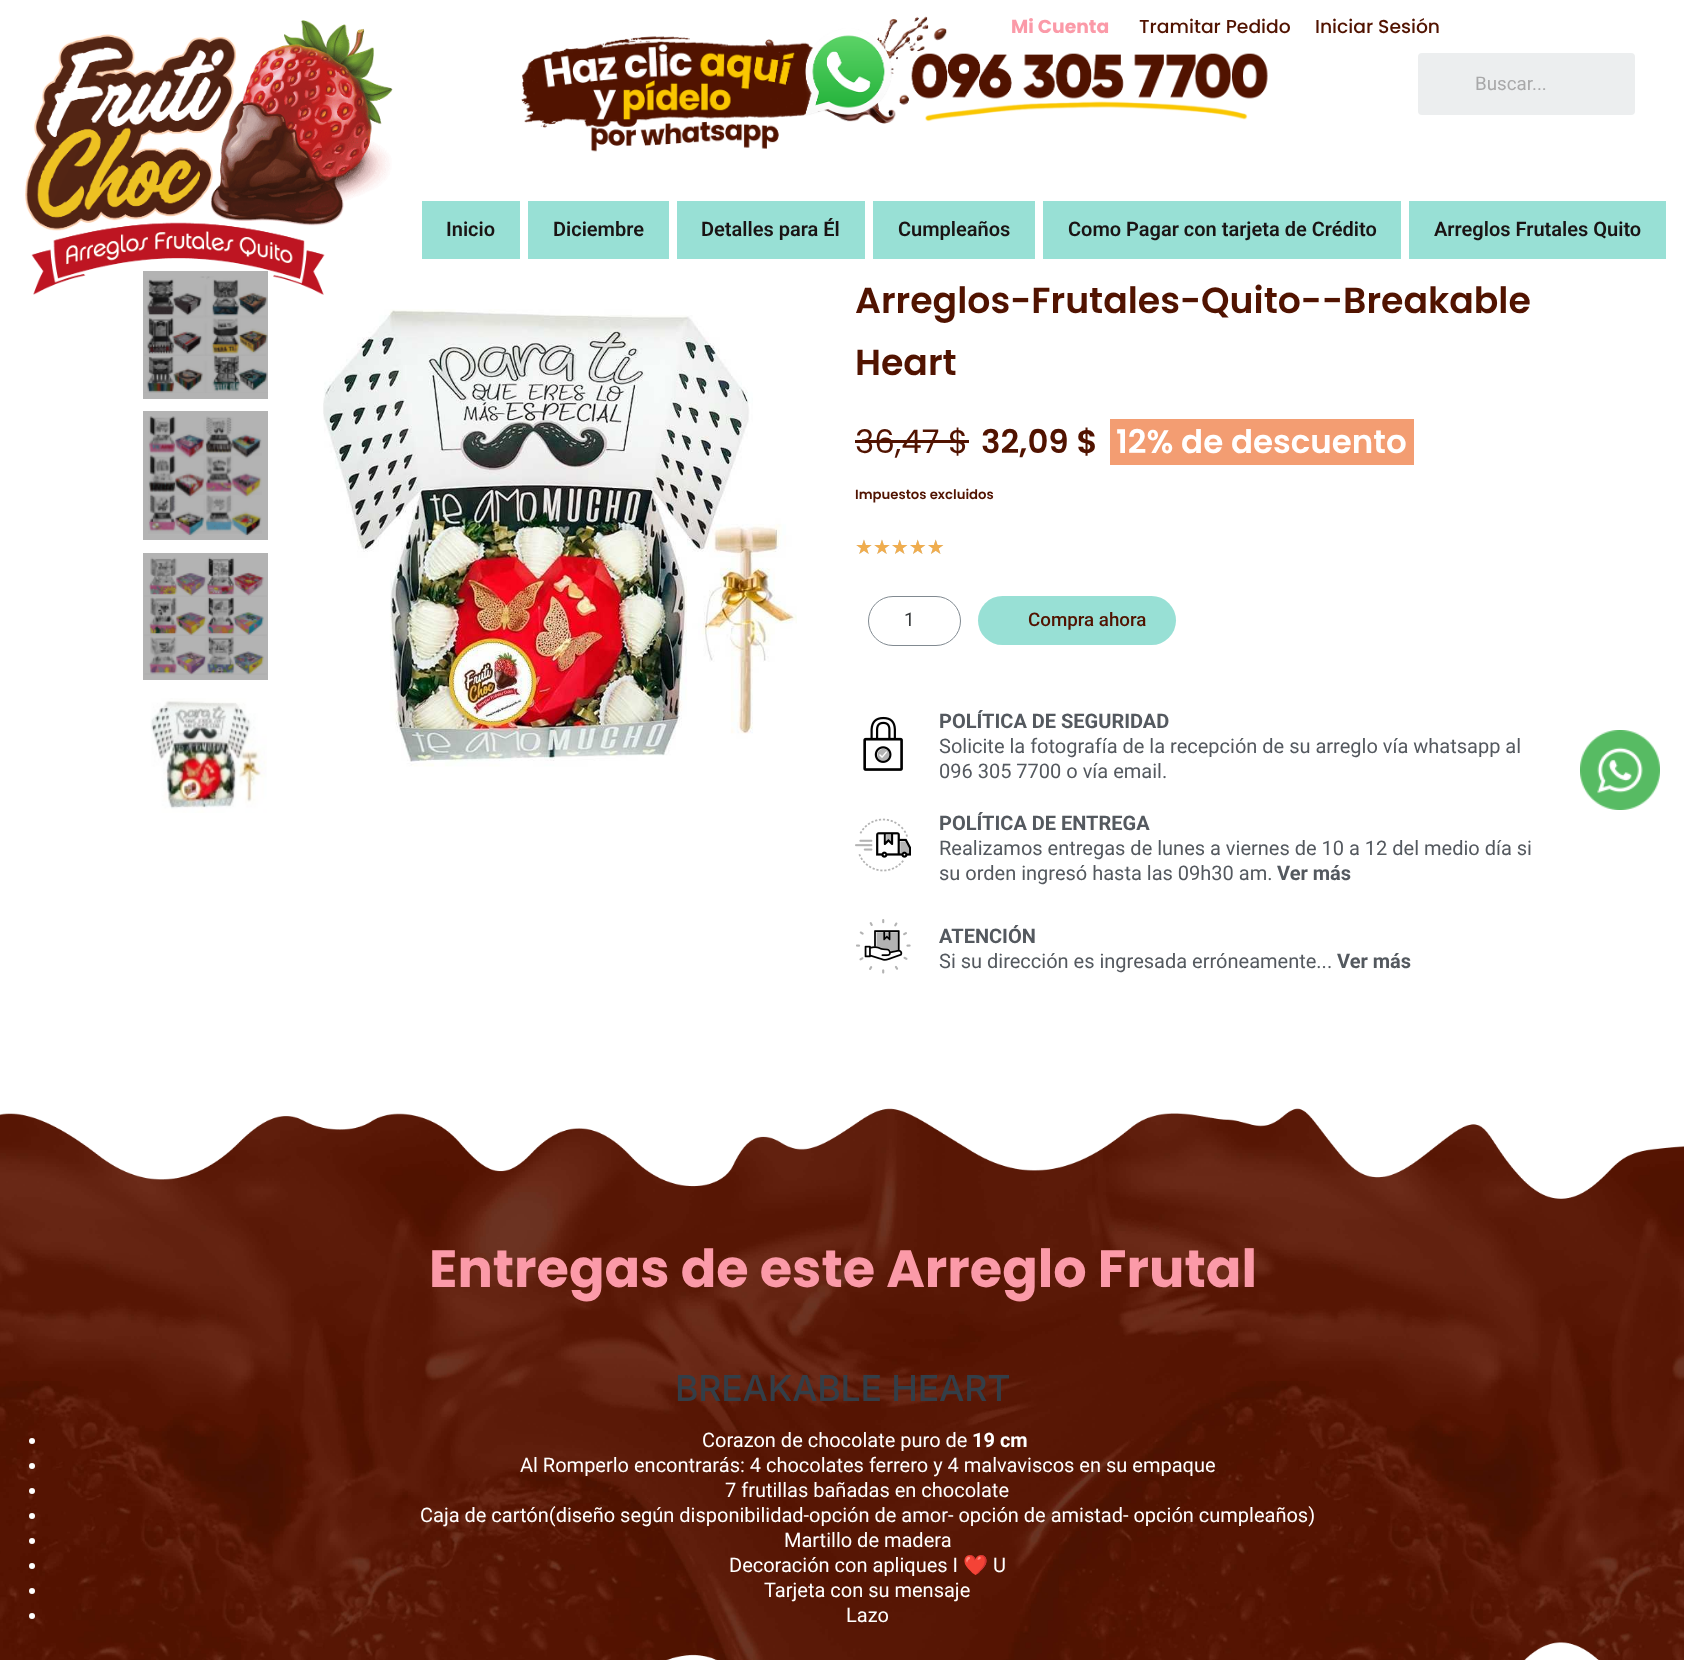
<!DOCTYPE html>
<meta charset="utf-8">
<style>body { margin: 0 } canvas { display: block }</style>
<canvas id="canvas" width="1684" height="1660"></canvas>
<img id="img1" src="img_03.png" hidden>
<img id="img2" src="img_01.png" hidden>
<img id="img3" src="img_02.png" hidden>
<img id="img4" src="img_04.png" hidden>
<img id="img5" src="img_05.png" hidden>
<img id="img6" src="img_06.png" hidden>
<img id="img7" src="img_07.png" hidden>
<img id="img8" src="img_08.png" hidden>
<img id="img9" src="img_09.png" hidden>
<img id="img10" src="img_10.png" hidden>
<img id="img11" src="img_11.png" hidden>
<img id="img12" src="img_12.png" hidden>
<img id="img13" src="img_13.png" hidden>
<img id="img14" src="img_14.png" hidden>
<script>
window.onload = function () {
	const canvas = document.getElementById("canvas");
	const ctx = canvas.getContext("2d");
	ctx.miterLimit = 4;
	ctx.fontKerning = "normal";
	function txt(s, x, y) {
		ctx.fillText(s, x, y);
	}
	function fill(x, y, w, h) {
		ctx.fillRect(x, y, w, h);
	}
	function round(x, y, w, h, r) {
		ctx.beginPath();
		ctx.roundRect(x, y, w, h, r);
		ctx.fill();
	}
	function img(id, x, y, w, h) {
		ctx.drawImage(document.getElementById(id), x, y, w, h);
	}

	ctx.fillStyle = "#FFFFFF";
	fill(0, 0, 1684, 1660);
	ctx.fillStyle = "#B3B3B3";
	fill(143, 553, 125, 127);
	fill(143, 411, 125, 129);
	fill(143, 271, 125, 128);
	img("img1", 144, 276, 124, 117);
	img("img2", 25, 20, 368, 275);
	img("img3", 521, 16, 747, 136);
	ctx.fillStyle = "#ECEEEF";
	round(1418, 53, 217, 62, 4);
	ctx.fillStyle = "#98E0D5";
	fill(422, 201, 98, 58);
	fill(528, 201, 141, 58);
	fill(677, 201, 188, 58);
	fill(873, 201, 162, 58);
	fill(1043, 201, 358, 58);
	fill(1409, 201, 257, 58);
	img("img4", 148, 416, 114, 121);
	img("img5", 144, 557, 123, 118);
	img("img6", 150, 698, 117, 115);
	img("img7", 323, 309, 474, 458);
	ctx.fillStyle = "#511300";
	fill(855, 440, 114, 3);
	ctx.fillStyle = "#F39D72";
	fill(1110, 419, 304, 46);
	ctx.beginPath();
	ctx.roundRect(868.5, 596.5, 92, 49, 24.5);
	ctx.strokeStyle = "#818A91";
	ctx.stroke();
	ctx.fillStyle = "#98E0D5";
	round(978, 596, 198, 49, 24.5);
	img("img8", 863, 716, 40, 55);
	img("img9", 855, 818, 56, 54);
	img("img10", 856, 919, 55, 55);
	img("img11", 0, 1108, 1684, 552);
	img("img12", 0, 1008, 1684, 191);
	ctx.fillStyle = "#FFFFFF";
	ctx.beginPath();
	ctx.arc(32, 1441, 3, 0, Math.PI * 2);
	ctx.fill();
	ctx.beginPath();
	ctx.arc(32, 1466, 3, 0, Math.PI * 2);
	ctx.fill();
	ctx.beginPath();
	ctx.arc(32, 1491, 3, 0, Math.PI * 2);
	ctx.fill();
	ctx.beginPath();
	ctx.arc(32, 1516, 3, 0, Math.PI * 2);
	ctx.fill();
	ctx.beginPath();
	ctx.arc(32, 1541, 3, 0, Math.PI * 2);
	ctx.fill();
	ctx.beginPath();
	ctx.arc(32, 1566, 3, 0, Math.PI * 2);
	ctx.fill();
	ctx.beginPath();
	ctx.arc(32, 1591, 3, 0, Math.PI * 2);
	ctx.fill();
	ctx.beginPath();
	ctx.arc(32, 1616, 3, 0, Math.PI * 2);
	ctx.fill();
	img("img13", 666, 1642, 933, 18);
	img("img14", 1580, 730, 80, 80);
	ctx.font = "bold 18.75px Poppins";
	ctx.fillStyle = "#FB9AA8";
	txt("Mi Cuenta", 1011, 33);
	ctx.font = "500 18.75px Poppins";
	ctx.fillStyle = "#511300";
	txt("Tramitar Pedido", 1139, 33);
	txt("Iniciar Sesión", 1315, 33);
	ctx.font = "18.75px Roboto";
	ctx.fillStyle = "#A8A8A9";
	txt("Buscar...", 1475, 90);
	ctx.font = "600 20px Roboto";
	ctx.fillStyle = "#1A1414";
	txt("Inicio", 446, 236);
	txt("Diciembre", 553, 236);
	txt("Detalles para Él", 701, 236);
	txt("Cumpleaños", 898, 236);
	txt("Como Pagar con tarjeta de Crédito", 1068, 236);
	txt("Arreglos Frutales Quito", 1434, 236);
	ctx.font = "600 36.25px Poppins";
	ctx.fillStyle = "#511300";
	txt("Arreglos-Frutales-Quito--Breakable", 855, 313);
	txt("Heart", 855, 375);
	ctx.font = "32.5px Poppins";
	txt("36,47 $", 855, 453);
	ctx.font = "600 32.5px Poppins";
	txt("32,09 $", 981, 453);
	ctx.fillStyle = "#FFFFFF";
	txt("12% de descuento", 1116, 453);
	ctx.font = "600 13.25px Poppins";
	ctx.fillStyle = "#511300";
	txt("Impuestos excluidos", 855, 499);
	ctx.font = "20px DejaVu Sans";
	ctx.fillStyle = "#CCD6DF";
	txt("★★★★★", 855, 554);
	ctx.fillStyle = "#F0AD4E";
	txt("★★★★★", 855, 554);
	ctx.font = "18.75px Roboto";
	ctx.fillStyle = "#373A3C";
	txt("1", 904, 626);
	ctx.font = "500 18.75px Roboto";
	ctx.fillStyle = "#511300";
	txt("Compra ahora", 1028, 626);
	ctx.font = "bold 20px Roboto";
	ctx.fillStyle = "#54595F";
	txt("POLÍTICA DE SEGURIDAD", 939, 728);
	ctx.font = "20px Roboto";
	txt("Solicite la fotografía de la recepción de su arreglo vía whatsapp al", 939, 753);
	txt("096 305 7700 o vía email.", 939, 778);
	ctx.font = "bold 20px Roboto";
	txt("POLÍTICA DE ENTREGA", 939, 830);
	ctx.font = "20px Roboto";
	txt("Realizamos entregas de lunes a viernes de 10 a 12 del medio día si", 939, 855);
	txt("su orden ingresó hasta las 09h30 am.", 939, 880);
	ctx.font = "bold 20px Roboto";
	txt("Ver más", 1277, 880);
	txt("ATENCIÓN", 939, 943);
	ctx.font = "20px Roboto";
	txt("Si su dirección es ingresada erróneamente...", 939, 968);
	ctx.font = "bold 20px Roboto";
	txt("Ver más", 1337, 968);
	ctx.font = "bold 52.5px Poppins";
	ctx.fillStyle = "#FB9AA8";
	txt("Entregas de este Arreglo Frutal", 429, 1287);
	ctx.letterSpacing = "-0.2px";
	ctx.font = "500 35.75px Inter";
	ctx.fillStyle = "#333E48";
	txt("BREAKABLE HEART", 675, 1401);
	ctx.letterSpacing = "0px";
	ctx.font = "20px Roboto";
	ctx.fillStyle = "#FFFFFF";
	txt("Corazon de chocolate puro de", 702, 1447);
	ctx.font = "bold 20px Roboto";
	txt("19 cm", 972, 1447);
	ctx.font = "20px Roboto";
	txt("Al Romperlo encontrarás: 4 chocolates ferrero y 4 malvaviscos en su empaque", 520, 1472);
	txt("7 frutillas bañadas en chocolate", 725, 1497);
	txt("Caja de cartón(diseño según disponibilidad-opción de amor- opción de amistad- opción cumpleaños)", 420, 1522);
	txt("Martillo de madera", 784, 1547);
	txt("Decoración con apliques I", 729, 1572);
	ctx.font = "20px Noto Color Emoji";
	txt("❤️", 963, 1572);
	ctx.font = "20px Roboto";
	txt("U", 993, 1572);
	txt("Tarjeta con su mensaje", 764, 1597);
	txt("Lazo", 846, 1622);
};
</script>
